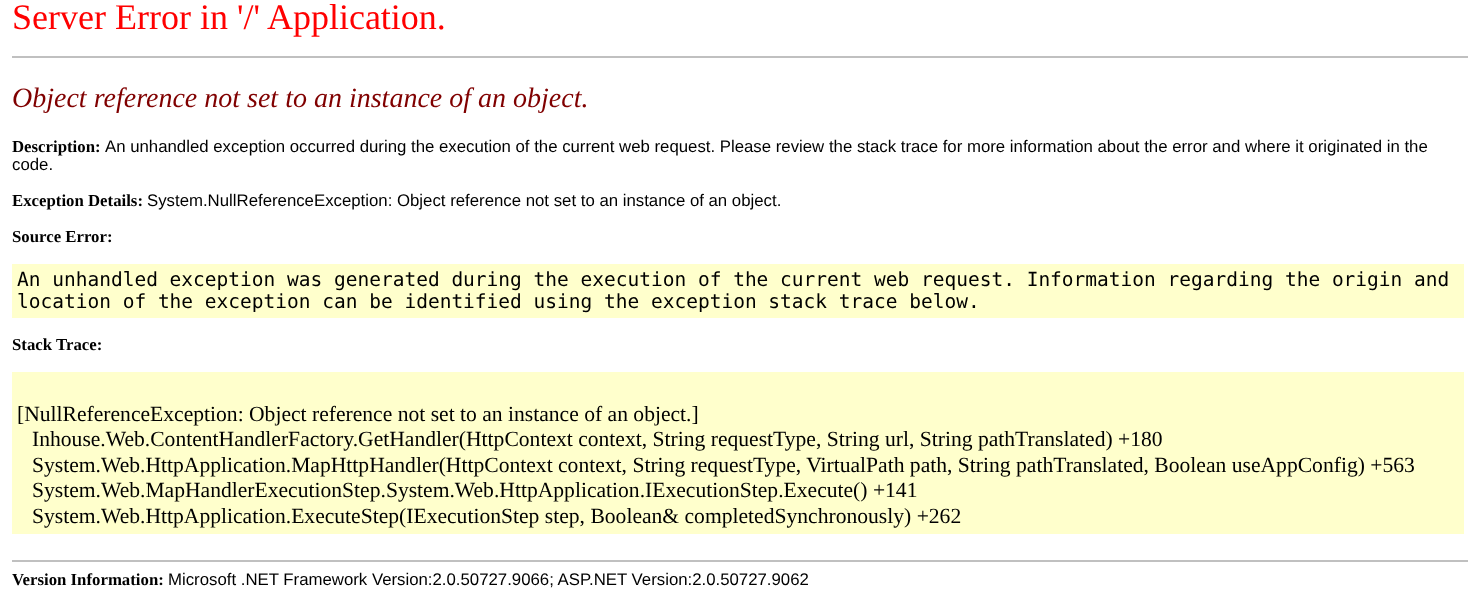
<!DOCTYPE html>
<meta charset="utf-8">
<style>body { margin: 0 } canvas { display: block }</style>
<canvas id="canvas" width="1476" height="596"></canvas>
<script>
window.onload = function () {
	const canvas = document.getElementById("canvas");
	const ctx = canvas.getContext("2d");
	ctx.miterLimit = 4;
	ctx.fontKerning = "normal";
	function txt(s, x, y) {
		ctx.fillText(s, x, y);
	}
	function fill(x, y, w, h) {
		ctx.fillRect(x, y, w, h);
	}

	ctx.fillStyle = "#FFFFFF";
	fill(0, 0, 1476, 596);
	ctx.fillStyle = "#C0C0C0";
	fill(12, 56, 1456, 2);
	ctx.fillStyle = "#FFFFCC";
	fill(12, 264, 1452, 54);
	fill(12, 372, 1452, 162);
	ctx.fillStyle = "#C0C0C0";
	fill(12, 560, 1456, 2);
	ctx.font = "36px Liberation Serif";
	ctx.fillStyle = "#FF0000";
	txt("Server Error in '/' Application.", 12, 29);
	ctx.font = "italic 28px Liberation Serif";
	ctx.fillStyle = "#800000";
	txt("Object reference not set to an instance of an object.", 12, 107);
	ctx.font = "bold 16.8px Liberation Serif";
	ctx.fillStyle = "#000000";
	txt("Description:", 12, 152);
	ctx.font = "16.8px Liberation Sans";
	txt("An unhandled exception occurred during the execution of the current web request. Please review the stack trace for more information about the error and where it originated in the", 105, 152);
	txt("code.", 12, 170);
	ctx.font = "bold 16.8px Liberation Serif";
	txt("Exception Details:", 12, 206);
	ctx.font = "16.8px Liberation Sans";
	txt("System.NullReferenceException: Object reference not set to an instance of an object.", 147, 206);
	ctx.font = "bold 16.8px Liberation Serif";
	txt("Source Error:", 12, 242);
	ctx.font = "19.5px DejaVu Sans Mono";
	txt("An unhandled exception was generated during the execution of the current web request. Information regarding the origin and", 17, 286);
	txt("location of the exception can be identified using the exception stack trace below.", 17, 308);
	ctx.font = "bold 16.8px Liberation Serif";
	txt("Stack Trace:", 12, 350);
	ctx.font = "21.6px Liberation Serif";
	txt("[NullReferenceException: Object reference not set to an instance of an object.]", 17, 421);
	txt("Inhouse.Web.ContentHandlerFactory.GetHandler(HttpContext context, String requestType, String url, String pathTranslated) +180", 32, 446);
	txt("System.Web.HttpApplication.MapHttpHandler(HttpContext context, String requestType, VirtualPath path, String pathTranslated, Boolean useAppConfig) +563", 32, 472);
	txt("System.Web.MapHandlerExecutionStep.System.Web.HttpApplication.IExecutionStep.Execute() +141", 32, 497);
	txt("System.Web.HttpApplication.ExecuteStep(IExecutionStep step, Boolean& completedSynchronously) +262", 32, 523);
	ctx.font = "bold 16.8px Liberation Serif";
	txt("Version Information:", 12, 585);
	ctx.font = "16.8px Liberation Sans";
	txt("Microsoft .NET Framework Version:2.0.50727.9066; ASP.NET Version:2.0.50727.9062", 168, 585);
};
</script>
